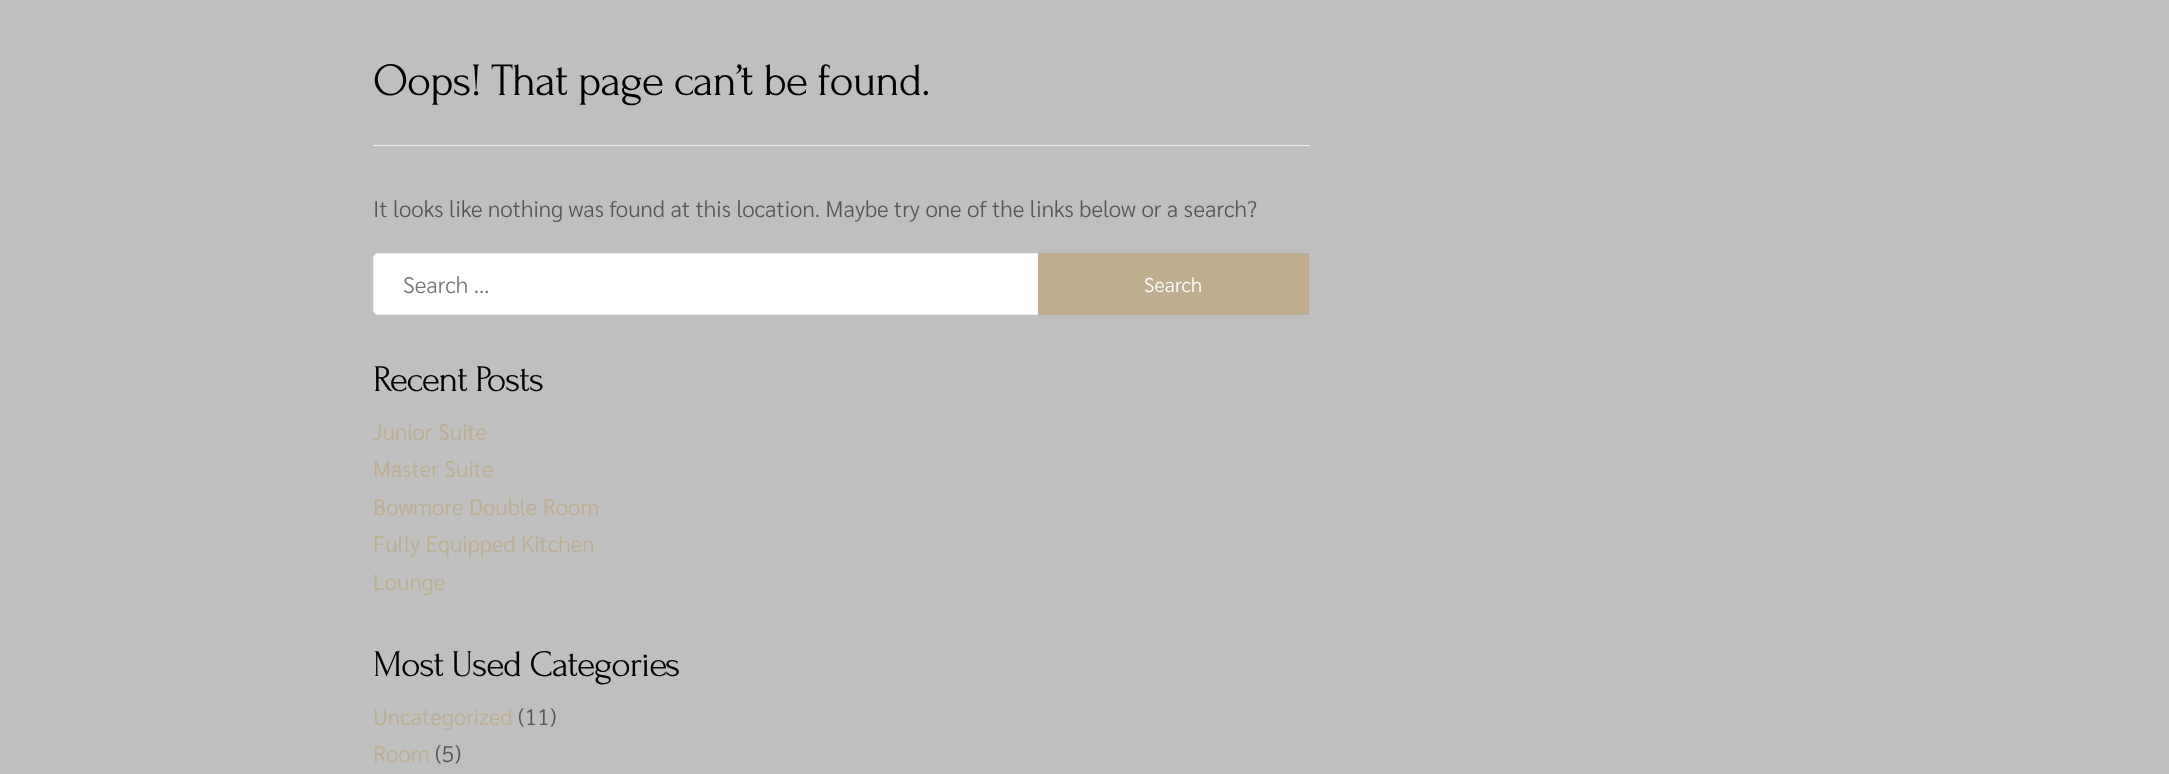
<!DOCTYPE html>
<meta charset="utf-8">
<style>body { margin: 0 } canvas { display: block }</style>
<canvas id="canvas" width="2169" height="774"></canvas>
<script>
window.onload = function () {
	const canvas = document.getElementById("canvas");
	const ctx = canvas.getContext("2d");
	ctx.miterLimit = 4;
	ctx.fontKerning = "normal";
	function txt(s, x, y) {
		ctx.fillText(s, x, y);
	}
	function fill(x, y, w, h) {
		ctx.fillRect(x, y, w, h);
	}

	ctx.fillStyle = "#BFBFBF";
	fill(0, 0, 2169, 774);
	ctx.fillStyle = "#EEEEEE";
	fill(373, 145, 937, 1);
	ctx.fillStyle = "#FFFFFF";
	ctx.beginPath();
	ctx.roundRect(373.5, 253.5, 665, 61, [4.5, 0, 0, 4.5]);
	ctx.fill();
	ctx.strokeStyle = "#EEEEEE";
	ctx.stroke();
	ctx.fillStyle = "#BEAD8E";
	fill(1038, 253, 271, 62);
	ctx.letterSpacing = "-1.25px";
	ctx.font = "46.25px Forum";
	ctx.fillStyle = "#000000";
	txt("Oops! That page can’t be found.", 373, 95);
	ctx.letterSpacing = "0px";
	ctx.font = "300 22.5px Sarabun";
	ctx.fillStyle = "#565656";
	txt("It looks like nothing was found at this location. Maybe try one of the links below or a search?", 373, 217);
	ctx.fillStyle = "#757575";
	txt("Search …", 403, 293);
	ctx.font = "300 20px Sarabun";
	ctx.fillStyle = "#FFFFFF";
	txt("Search", 1144, 292);
	ctx.letterSpacing = "-1.25px";
	ctx.font = "37.5px Forum";
	ctx.fillStyle = "#000000";
	txt("Recent Posts", 373, 391);
	ctx.letterSpacing = "0px";
	ctx.font = "300 22.5px Sarabun";
	ctx.fillStyle = "#BEAD8E";
	txt("Junior Suite", 373, 440);
	txt("Master Suite", 373, 477);
	txt("Bowmore Double Room", 373, 515);
	txt("Fully Equipped Kitchen", 373, 552);
	txt("Lounge", 373, 590);
	ctx.letterSpacing = "-1.25px";
	ctx.font = "37.5px Forum";
	ctx.fillStyle = "#000000";
	txt("Most Used Categories", 373, 676);
	ctx.letterSpacing = "0px";
	ctx.font = "300 22.5px Sarabun";
	ctx.fillStyle = "#BEAD8E";
	txt("Uncategorized", 373, 725);
	ctx.fillStyle = "#565656";
	txt("(11)", 518, 725);
	ctx.fillStyle = "#BEAD8E";
	txt("Room", 373, 762);
	ctx.fillStyle = "#565656";
	txt("(5)", 435, 762);
};
</script>
